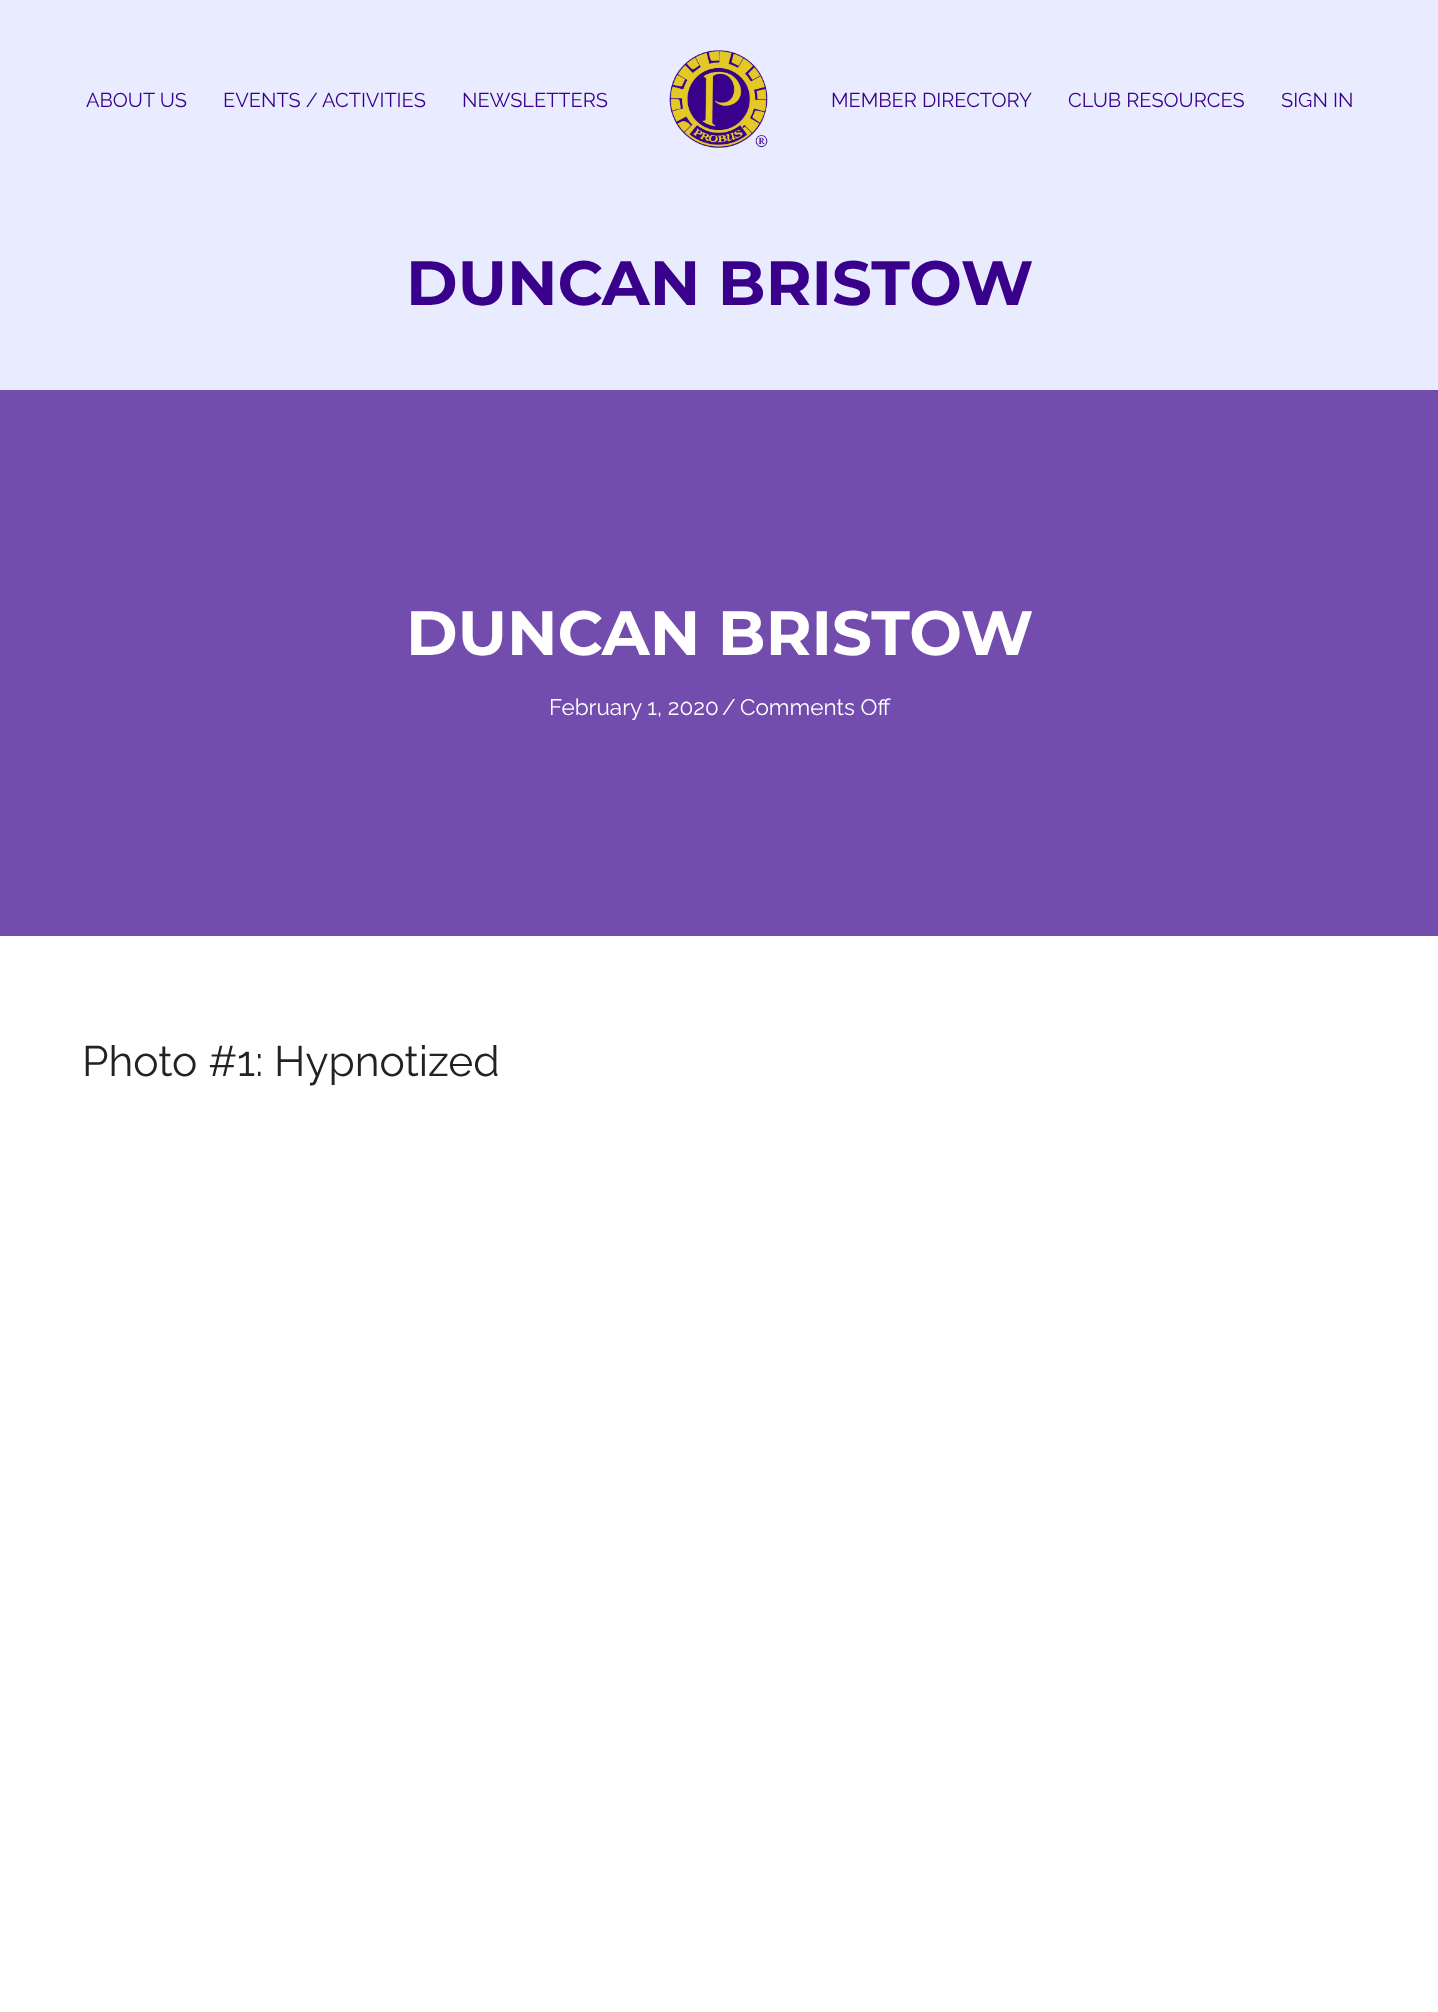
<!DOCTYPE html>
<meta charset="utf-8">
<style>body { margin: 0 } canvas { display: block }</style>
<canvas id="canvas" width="1438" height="2012"></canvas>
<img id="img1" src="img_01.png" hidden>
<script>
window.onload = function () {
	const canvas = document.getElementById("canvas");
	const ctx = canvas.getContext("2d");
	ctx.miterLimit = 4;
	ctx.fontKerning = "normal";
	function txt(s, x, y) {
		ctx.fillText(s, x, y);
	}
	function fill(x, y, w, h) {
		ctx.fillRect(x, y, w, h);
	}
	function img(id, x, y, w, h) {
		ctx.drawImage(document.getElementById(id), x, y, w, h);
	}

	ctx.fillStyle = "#FFFFFF";
	fill(0, 0, 1438, 2012);
	ctx.fillStyle = "#E9ECFF";
	fill(0, 0, 1438, 390);
	img("img1", 669, 50, 99, 98);
	ctx.fillStyle = "#734DAD";
	fill(0, 390, 1438, 546);
	ctx.font = "20px Raleway";
	ctx.fillStyle = "#39008C";
	txt("ABOUT US", 86, 107);
	txt("EVENTS /", 223, 107);
	txt("ACTIVITIES", 322, 107);
	txt("NEWSLETTERS", 462, 107);
	txt("MEMBER DIRECTORY", 831, 107);
	txt("CLUB RESOURCES", 1068, 107);
	txt("SIGN IN", 1281, 107);
	ctx.font = "bold 62.5px Montserrat";
	txt("DUNCAN BRISTOW", 406, 305);
	ctx.fillStyle = "#FFFFFF";
	txt("DUNCAN BRISTOW", 406, 655);
	ctx.font = "22.5px Raleway";
	txt("February 1, 2020", 549, 715);
	txt("/", 722, 715);
	txt("Comments Off", 740, 715);
	ctx.font = "42.5px Raleway";
	ctx.fillStyle = "#222222";
	txt("Photo #1: Hypnotized", 82, 1076);
};
</script>
